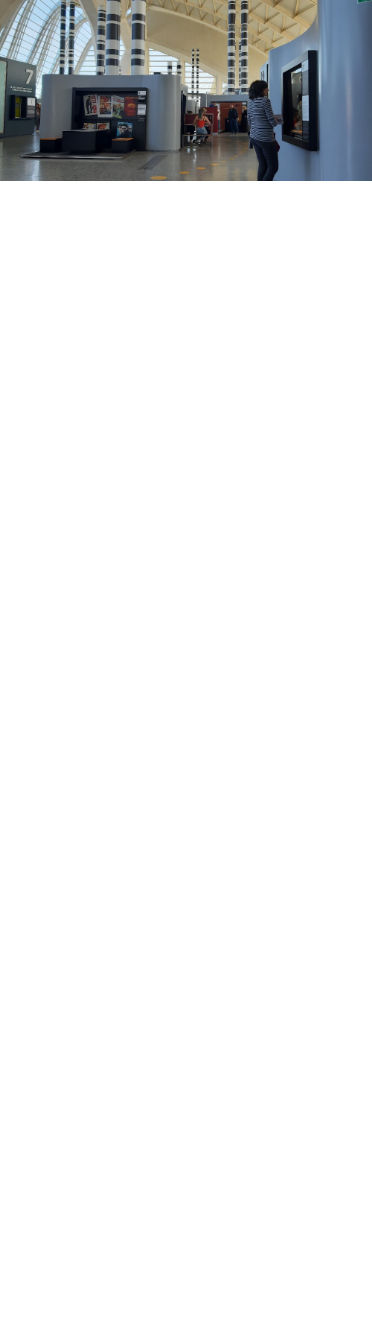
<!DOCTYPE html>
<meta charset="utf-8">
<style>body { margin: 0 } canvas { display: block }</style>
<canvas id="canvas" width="372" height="1344"></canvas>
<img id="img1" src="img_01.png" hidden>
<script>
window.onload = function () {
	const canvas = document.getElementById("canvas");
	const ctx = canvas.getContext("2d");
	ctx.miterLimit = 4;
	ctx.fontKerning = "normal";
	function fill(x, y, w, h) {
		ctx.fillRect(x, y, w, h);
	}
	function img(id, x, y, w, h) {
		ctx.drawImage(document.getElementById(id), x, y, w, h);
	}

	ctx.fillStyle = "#FFFFFF";
	fill(0, 0, 372, 1344);
	img("img1", 0, 0, 372, 181);
};
</script>
